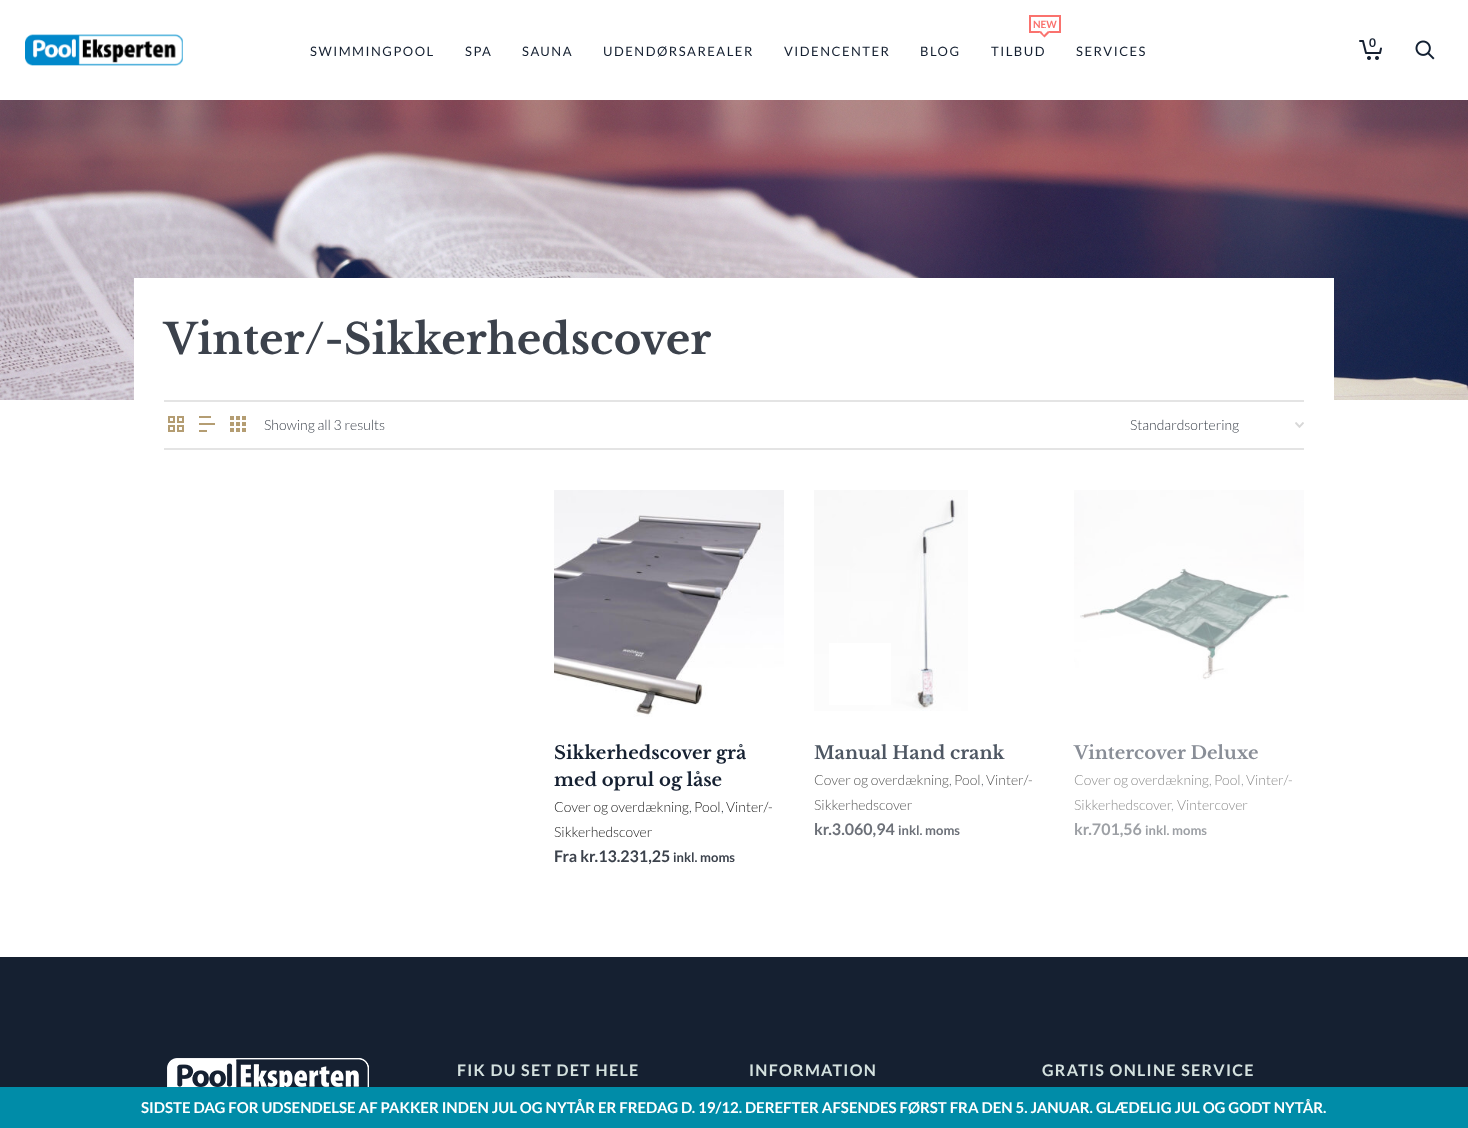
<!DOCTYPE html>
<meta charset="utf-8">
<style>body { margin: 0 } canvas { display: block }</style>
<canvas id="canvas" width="1468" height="1128"></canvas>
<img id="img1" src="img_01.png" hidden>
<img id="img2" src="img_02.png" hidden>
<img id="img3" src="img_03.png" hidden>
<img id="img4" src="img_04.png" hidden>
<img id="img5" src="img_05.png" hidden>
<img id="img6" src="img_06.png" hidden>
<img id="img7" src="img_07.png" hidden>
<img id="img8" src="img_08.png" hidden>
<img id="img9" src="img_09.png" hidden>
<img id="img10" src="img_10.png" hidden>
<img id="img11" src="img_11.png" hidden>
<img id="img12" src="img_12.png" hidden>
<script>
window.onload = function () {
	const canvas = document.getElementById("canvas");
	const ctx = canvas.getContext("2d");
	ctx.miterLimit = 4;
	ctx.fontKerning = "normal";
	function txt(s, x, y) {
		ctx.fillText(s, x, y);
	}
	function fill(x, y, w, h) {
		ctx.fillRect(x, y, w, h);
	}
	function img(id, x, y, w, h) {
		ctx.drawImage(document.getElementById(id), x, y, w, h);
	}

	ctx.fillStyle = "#FFFFFF";
	fill(0, 0, 1468, 1128);
	img("img1", 25, 34, 158, 32);
	ctx.strokeStyle = "#FA726E";
	ctx.lineWidth = 2;
	ctx.strokeRect(1030, 16, 30, 16);
	img("img2", 1359, 40, 23, 20);
	img("img3", 1415, 40, 20, 20);
	img("img4", 0, 100, 1468, 300);
	fill(134, 278, 1200, 122);
	ctx.fillStyle = "#E4E4E4";
	fill(164, 400, 1140, 2);
	fill(164, 448, 1140, 2);
	img("img5", 168, 416, 16, 16);
	img("img6", 199, 416, 16, 16);
	img("img7", 230, 416, 16, 16);
	img("img8", 1295, 422, 9, 6);
	img("img9", 554, 490, 230, 227);
	img("img10", 814, 490, 154, 221);
	ctx.fillStyle = "#FFFFFF";
	fill(829, 643, 62, 62);
	img("img11", 1074, 490, 230, 190);
	ctx.fillStyle = "#152031";
	fill(0, 957, 1468, 130);
	img("img12", 167, 1058, 202, 29);
	ctx.fillStyle = "#008CA8";
	fill(0, 1087, 1468, 41);
	ctx.letterSpacing = "1.5px";
	ctx.font = "13px Lato";
	ctx.fillStyle = "#152031";
	txt("SWIMMINGPOOL", 310, 56);
	txt("SPA", 465, 56);
	txt("SAUNA", 522, 56);
	txt("UDENDØRSAREALER", 603, 56);
	txt("VIDENCENTER", 784, 56);
	txt("BLOG", 920, 56);
	ctx.letterSpacing = "0px";
	ctx.font = "bold 10px Lato";
	ctx.fillStyle = "#FA726E";
	txt("NEW", 1033, 28);
	ctx.fillStyle = "#FFFFFF";
	ctx.beginPath();
	ctx.moveTo(1044.5, 37.5);
	ctx.lineTo(1039.5, 32.5);
	ctx.lineTo(1044.5, 27.5);
	ctx.lineTo(1049.5, 32.5);
	ctx.closePath();
	ctx.fill();
	ctx.fillStyle = "#FA726E";
	ctx.beginPath();
	ctx.moveTo(1044, 35);
	ctx.lineTo(1048, 31);
	ctx.lineTo(1049.5, 32.5);
	ctx.lineTo(1044.5, 37.5);
	ctx.lineTo(1039.5, 32.5);
	ctx.lineTo(1041, 31);
	ctx.closePath();
	ctx.fill();
	ctx.letterSpacing = "1.5px";
	ctx.font = "13px Lato";
	ctx.fillStyle = "#152031";
	txt("TILBUD", 991, 56);
	txt("SERVICES", 1076, 56);
	ctx.letterSpacing = "0px";
	ctx.font = "bold 12px Lato";
	txt("0", 1369, 47);
	ctx.font = "bold 42px Libre Baskerville";
	ctx.fillStyle = "#3C424C";
	txt("Vinter/-Sikkerhedscover", 164, 354);
	ctx.font = "300 14px Lato";
	txt("Showing all 3 results", 264, 430);
	txt("Standardsortering", 1130, 430);
	ctx.font = "bold 18px Libre Baskerville";
	ctx.fillStyle = "#152031";
	txt("Sikkerhedscover grå", 554, 759);
	txt("med oprul og låse", 554, 786);
	ctx.font = "300 14px Lato";
	ctx.fillStyle = "#222222";
	txt("Cover og overdækning", 554, 812);
	ctx.fillStyle = "#3C424C";
	txt(",", 689, 812);
	ctx.fillStyle = "#222222";
	txt("Pool", 694, 812);
	ctx.fillStyle = "#3C424C";
	txt(",", 721, 812);
	ctx.fillStyle = "#222222";
	txt("Vinter/-", 726, 812);
	txt("Sikkerhedscover", 554, 837);
	ctx.font = "bold 16px Lato";
	ctx.fillStyle = "#3C424C";
	txt("Fra kr.13.231,25", 554, 862);
	ctx.font = "bold 13px Lato";
	txt("inkl. moms", 673, 862);
	ctx.font = "bold 18px Libre Baskerville";
	ctx.fillStyle = "#4E5763";
	txt("Manual Hand crank", 814, 759);
	ctx.font = "300 14px Lato";
	ctx.fillStyle = "#585858";
	txt("Cover og overdækning", 814, 785);
	ctx.fillStyle = "#6C7078";
	txt(",", 949, 785);
	ctx.fillStyle = "#585858";
	txt("Pool", 954, 785);
	ctx.fillStyle = "#6C7078";
	txt(",", 981, 785);
	ctx.fillStyle = "#585858";
	txt("Vinter/-", 986, 785);
	txt("Sikkerhedscover", 814, 810);
	ctx.font = "bold 16px Lato";
	ctx.fillStyle = "#6C7078";
	txt("kr.3.060,94", 814, 835);
	ctx.font = "bold 13px Lato";
	txt("inkl. moms", 898, 835);
	ctx.font = "bold 18px Libre Baskerville";
	ctx.fillStyle = "#898E97";
	txt("Vintercover Deluxe", 1074, 759);
	ctx.font = "300 14px Lato";
	ctx.fillStyle = "#8F8F8F";
	txt("Cover og overdækning", 1074, 785);
	ctx.fillStyle = "#9DA0A5";
	txt(",", 1209, 785);
	ctx.fillStyle = "#8F8F8F";
	txt("Pool", 1214, 785);
	ctx.fillStyle = "#9DA0A5";
	txt(",", 1241, 785);
	ctx.fillStyle = "#8F8F8F";
	txt("Vinter/-", 1246, 785);
	txt("Sikkerhedscover", 1074, 810);
	ctx.fillStyle = "#9DA0A5";
	txt(",", 1171, 810);
	ctx.fillStyle = "#8F8F8F";
	txt("Vintercover", 1177, 810);
	ctx.font = "bold 16px Lato";
	ctx.fillStyle = "#9DA0A5";
	txt("kr.701,56", 1074, 835);
	ctx.font = "bold 13px Lato";
	txt("inkl. moms", 1145, 835);
	ctx.letterSpacing = "1.3px";
	ctx.font = "bold 16px Lato";
	ctx.fillStyle = "#D4E1DF";
	txt("FIK DU SET DET HELE", 457, 1076);
	txt("INFORMATION", 749, 1076);
	txt("GRATIS ONLINE SERVICE", 1042, 1076);
	ctx.letterSpacing = "0px";
	ctx.font = "bold 15px Lato";
	ctx.fillStyle = "#FFFFFF";
	txt("SIDSTE DAG FOR UDSENDELSE AF PAKKER INDEN JUL OG NYTÅR ER FREDAG D. 19/12. DEREFTER AFSENDES FØRST FRA DEN 5. JANUAR. GLÆDELIG JUL OG GODT NYTÅR.", 141, 1113);
};
</script>
